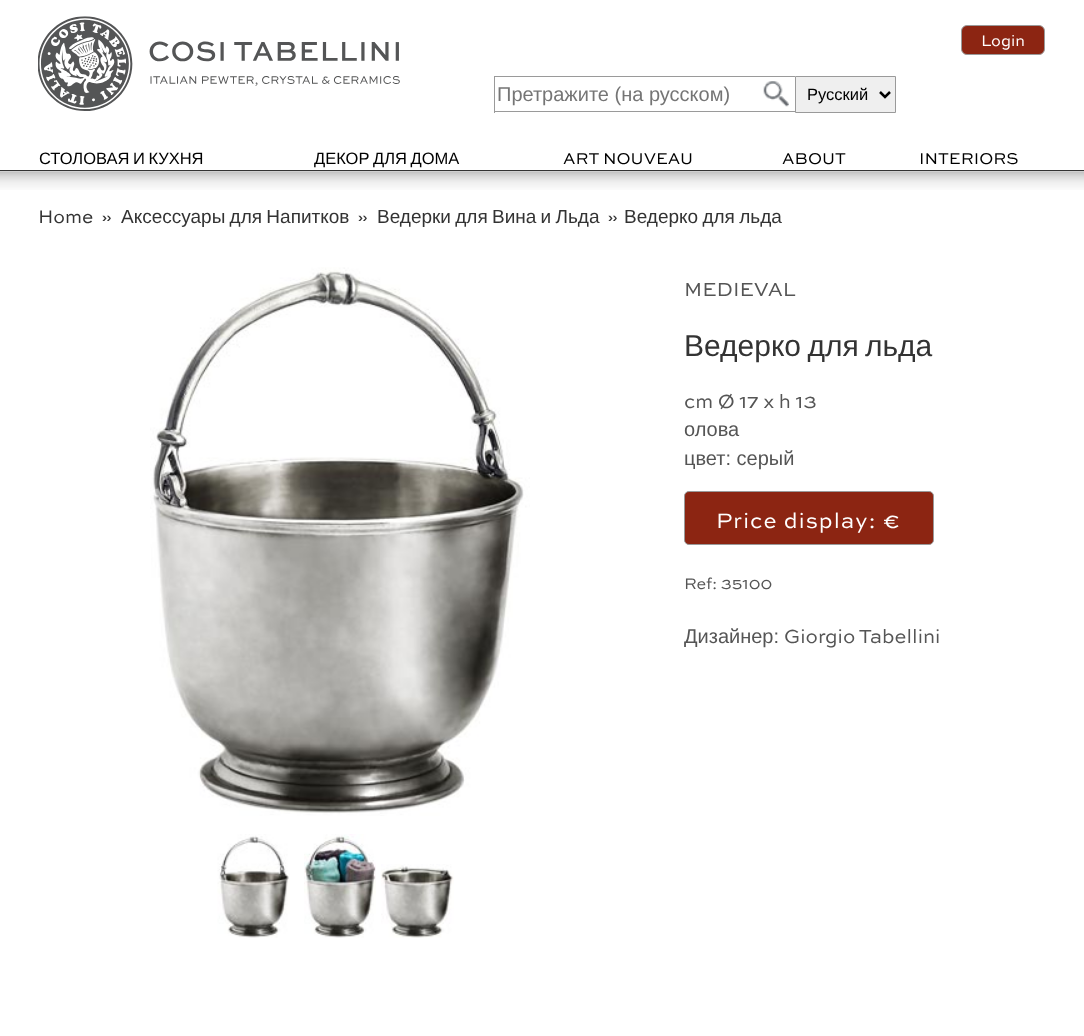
<!DOCTYPE html>
<meta charset="utf-8">
<style>body { margin: 0 } canvas { display: block }</style>
<canvas id="canvas" width="1084" height="1036"></canvas>
<img id="img1" src="img_01.png" hidden>
<img id="img2" src="img_02.png" hidden>
<img id="img3" src="img_03.png" hidden>
<img id="img4" src="img_04.png" hidden>
<img id="img5" src="img_05.png" hidden>
<img id="img6" src="img_06.png" hidden>
<img id="img7" src="img_07.png" hidden>
<script>
window.onload = function () {
	const canvas = document.getElementById("canvas");
	const ctx = canvas.getContext("2d");
	ctx.miterLimit = 4;
	ctx.fontKerning = "normal";
	function txt(s, x, y) {
		ctx.fillText(s, x, y);
	}
	function fill(x, y, w, h) {
		ctx.fillRect(x, y, w, h);
	}
	function img(id, x, y, w, h) {
		ctx.drawImage(document.getElementById(id), x, y, w, h);
	}

	ctx.fillStyle = "#FFFFFF";
	fill(0, 0, 1084, 1036);
	img("img1", 38, 16, 362, 95);
	ctx.fillStyle = "#8C2512";
	ctx.beginPath();
	ctx.roundRect(961.5, 25.5, 83, 29, 5.5);
	ctx.fill();
	ctx.strokeStyle = "#9A9A9A";
	ctx.stroke();
	ctx.fillStyle = "#9A9A9A";
	fill(494, 76, 301, 1);
	fill(494, 111, 301, 1);
	fill(494, 76, 1, 37);
	img("img2", 763, 81, 26, 26);
	ctx.fillStyle = "#EFEFEF";
	ctx.beginPath();
	ctx.rect(795.5, 76.5, 100, 36);
	ctx.fill();
	ctx.stroke();
	ctx.beginPath();
	ctx.moveTo(880, 92);
	ctx.lineTo(885, 97);
	ctx.lineTo(890, 92);
	ctx.strokeStyle = "#000000";
	ctx.lineWidth = 2.5;
	ctx.stroke();
	img("img3", 0, 171, 1084, 19);
	ctx.fillStyle = "#333333";
	fill(0, 170, 1084, 1);
	img("img4", 150, 267, 380, 549);
	img("img5", 217, 834, 73, 104);
	img("img6", 304, 834, 72, 104);
	img("img7", 381, 864, 73, 74);
	ctx.fillStyle = "#8C2512";
	ctx.beginPath();
	ctx.roundRect(684.5, 491.5, 249, 53, 4.5);
	ctx.fill();
	ctx.strokeStyle = "#9A9A9A";
	ctx.lineWidth = 1;
	ctx.stroke();
	ctx.font = "16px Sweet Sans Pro";
	ctx.fillStyle = "#FFFFFF";
	txt("Login", 981, 46);
	ctx.font = "20px Liberation Sans";
	ctx.fillStyle = "#757575";
	txt("Претражите (на русском)", 497, 101);
	ctx.font = "16.5px Liberation Sans";
	ctx.fillStyle = "#000000";
	txt("Pусский", 807, 100);
	ctx.wordSpacing = "-1px";
	txt("СТОЛОВАЯ И КУХНЯ", 39, 164);
	txt("ДЕКОР ДЛЯ ДОМА", 314, 164);
	ctx.wordSpacing = "0px";
	ctx.font = "16.5px Sweet Sans Pro";
	txt("ART NOUVEAU", 563, 164);
	txt("ABOUT", 782, 164);
	txt("INTERIORS", 919, 164);
	ctx.font = "19px Sweet Sans Pro";
	ctx.fillStyle = "#333333";
	txt("Home", 38, 223);
	txt("»", 101, 223);
	ctx.wordSpacing = "-1px";
	ctx.font = "19px Liberation Sans";
	txt("Аксессуары для Напитков", 121, 223);
	ctx.wordSpacing = "0px";
	ctx.font = "19px Sweet Sans Pro";
	txt("»", 357, 223);
	ctx.wordSpacing = "-1px";
	ctx.font = "19px Liberation Sans";
	txt("Ведерки для Вина и Льда", 377, 223);
	ctx.wordSpacing = "0px";
	ctx.font = "19px Sweet Sans Pro";
	txt("»", 607, 223);
	ctx.wordSpacing = "-1px";
	ctx.font = "19px Liberation Sans";
	txt("Ведерко для льда", 624, 223);
	ctx.wordSpacing = "0px";
	ctx.font = "20px Sweet Sans Pro";
	ctx.fillStyle = "#555555";
	txt("MEDIEVAL", 684, 296);
	ctx.wordSpacing = "-2px";
	ctx.font = "30px Liberation Sans";
	ctx.fillStyle = "#333333";
	txt("Ведерко для льда", 684, 356);
	ctx.wordSpacing = "0px";
	ctx.font = "20px Sweet Sans Pro";
	ctx.fillStyle = "#555555";
	txt("cm Ø 17 x h 13", 684, 408);
	ctx.font = "20px Liberation Sans";
	txt("олова", 684, 436);
	txt("цвет: серый", 684, 465);
	ctx.letterSpacing = "1.1px";
	ctx.font = "22px Sweet Sans Pro";
	ctx.fillStyle = "#FFFFFF";
	txt("Price display: €", 716, 528);
	ctx.letterSpacing = "0px";
	ctx.font = "16.25px Sweet Sans Pro";
	ctx.fillStyle = "#555555";
	txt("Ref: 35100", 684, 589);
	ctx.font = "20px Liberation Sans";
	txt("Дизайнер:", 684, 643);
	ctx.font = "20px Sweet Sans Pro";
	txt("Giorgio Tabellini", 784, 643);
};
</script>
